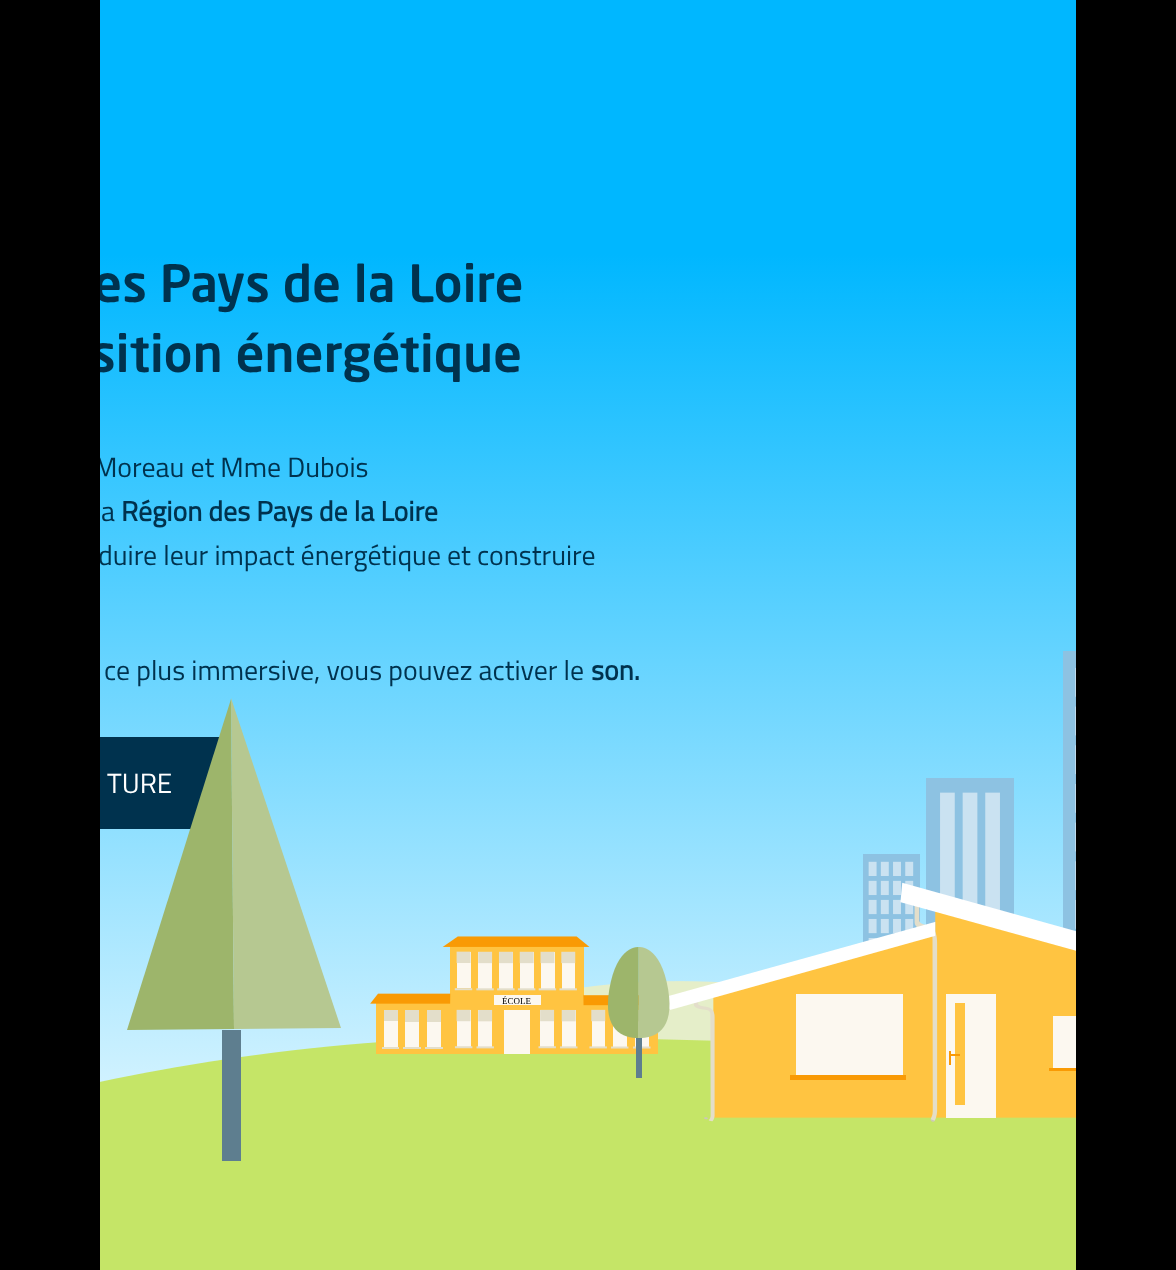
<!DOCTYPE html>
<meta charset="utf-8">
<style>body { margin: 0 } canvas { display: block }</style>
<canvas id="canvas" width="1176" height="1270"></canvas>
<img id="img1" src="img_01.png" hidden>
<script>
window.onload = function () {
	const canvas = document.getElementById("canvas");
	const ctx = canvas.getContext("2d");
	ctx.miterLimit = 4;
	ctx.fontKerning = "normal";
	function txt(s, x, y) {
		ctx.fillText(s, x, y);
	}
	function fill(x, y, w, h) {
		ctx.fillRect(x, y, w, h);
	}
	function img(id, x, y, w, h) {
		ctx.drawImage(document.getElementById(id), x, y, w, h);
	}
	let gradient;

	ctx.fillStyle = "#FFFFFF";
	fill(0, 0, 1176, 1270);
	gradient = ctx.createLinearGradient(588, 0, 588, 1270);
	gradient.addColorStop(0.2, "#00B7FF");
	gradient.addColorStop(1, "#FFFFFF");
	ctx.fillStyle = gradient;
	fill(100, 0, 976, 1082);
	img("img1", 100, 651, 976, 619);
	ctx.fillStyle = "#5E7E8F";
	fill(222, 1030, 19, 131);
	ctx.fillStyle = "#00324E";
	fill(100, 737, 119, 92);
	ctx.fillStyle = "#000000";
	fill(1076, 0, 100, 1270);
	ctx.font = "500 50.75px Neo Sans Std";
	ctx.fillStyle = "#00324E";
	txt("es Pays de la Loire", 93, 302);
	txt("sition énergétique", 91, 372);
	ctx.font = "27.9px Titillium Web";
	txt("Moreau et Mme Dubois", 94, 477);
	txt("a", 101, 521);
	ctx.font = "bold 27.9px Titillium Web";
	txt("Région des Pays de la Loire", 121, 521);
	ctx.font = "27.9px Titillium Web";
	txt("duire leur impact énergétique et construire", 98, 565);
	ctx.fillStyle = "#000000";
	fill(0, 0, 100, 1270);
	ctx.fillStyle = "#00324E";
	txt("ce plus immersive, vous pouvez activer le", 104, 680);
	ctx.font = "bold 27.9px Titillium Web";
	txt("son.", 591, 680);
	ctx.font = "27.9px Titillium Web";
	ctx.fillStyle = "#FFFFFF";
	txt("TURE", 107, 793);
	ctx.fillStyle = "#9DB56B";
	ctx.beginPath();
	ctx.moveTo(231, 699);
	ctx.lineTo(234, 1029);
	ctx.lineTo(127, 1030);
	ctx.closePath();
	ctx.fill();
	ctx.fillStyle = "#B6C891";
	ctx.beginPath();
	ctx.moveTo(341, 1028);
	ctx.lineTo(231, 698);
	ctx.lineTo(234, 1029);
	ctx.fill();
	ctx.font = "9px Liberation Serif";
	ctx.fillStyle = "#000000";
	txt("ÉCOLE", 502, 1004);
};
</script>
